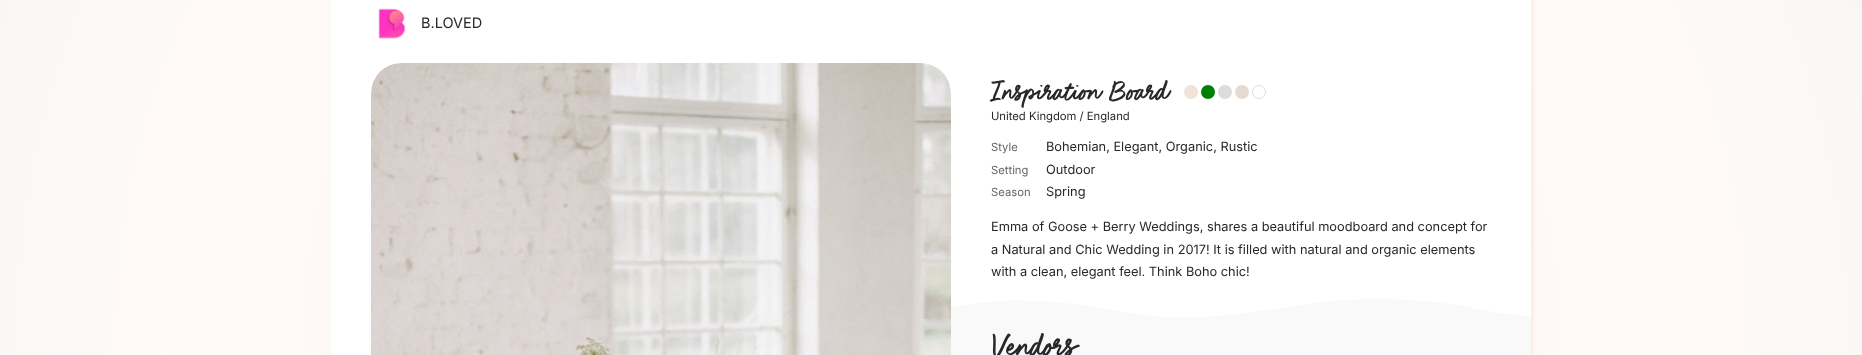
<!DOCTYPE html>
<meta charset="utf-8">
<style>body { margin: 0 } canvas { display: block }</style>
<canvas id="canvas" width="1862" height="355"></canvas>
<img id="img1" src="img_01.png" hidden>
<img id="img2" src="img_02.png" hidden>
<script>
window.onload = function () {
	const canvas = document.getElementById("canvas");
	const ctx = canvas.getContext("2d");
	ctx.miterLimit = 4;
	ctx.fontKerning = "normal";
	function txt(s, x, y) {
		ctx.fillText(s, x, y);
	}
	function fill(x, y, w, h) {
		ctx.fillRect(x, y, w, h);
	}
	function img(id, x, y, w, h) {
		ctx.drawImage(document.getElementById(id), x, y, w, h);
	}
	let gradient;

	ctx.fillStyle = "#FFFFFF";
	fill(0, 0, 1862, 355);
	gradient = ctx.createRadialGradient(931, 342, 0, 931, 342, 1103);
	gradient.addColorStop(0, "#FFEBE0");
	gradient.addColorStop(0.3, "#FDF6F3");
	gradient.addColorStop(0.7, "#FFFAF8");
	gradient.addColorStop(1, "#F6F5F5");
	ctx.fillStyle = gradient;
	fill(0, 0, 1862, 355);
	ctx.fillStyle = "rgba(255, 186, 148, 0.25)";
	ctx.filter = "blur(1.5px)";
	ctx.beginPath();
	ctx.roundRect(333, -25, 1200, 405, 20);
	ctx.fill();
	ctx.filter = "none";
	ctx.fillStyle = "#FFFFFF";
	fill(331, 0, 1200, 355);
	img("img1", 378, 8, 28, 31);
	img("img2", 371, 63, 580, 292);
	ctx.fillStyle = "#EFE3DA";
	ctx.beginPath();
	ctx.arc(1191, 92, 7, 0, Math.PI * 2);
	ctx.fill();
	ctx.fillStyle = "#008000";
	ctx.beginPath();
	ctx.arc(1208, 92, 7, 0, Math.PI * 2);
	ctx.fill();
	ctx.fillStyle = "#DCDCDC";
	ctx.beginPath();
	ctx.arc(1225, 92, 7, 0, Math.PI * 2);
	ctx.fill();
	ctx.fillStyle = "#E7DBD1";
	ctx.beginPath();
	ctx.arc(1242, 92, 7, 0, Math.PI * 2);
	ctx.fill();
	ctx.beginPath();
	ctx.arc(1259, 92, 6.5, 0, Math.PI * 2);
	ctx.strokeStyle = "#DEDEDE";
	ctx.stroke();
	ctx.fillStyle = "#F9F9F9";
	ctx.beginPath();
	ctx.moveTo(1531, 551);
	ctx.lineTo(1531, 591);
	ctx.lineTo(951, 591);
	ctx.lineTo(951, 307);
	ctx.bezierCurveTo(1057, 288, 1108, 316, 1174, 317);
	ctx.lineTo(1183, 317);
	ctx.bezierCurveTo(1255, 318, 1302, 299, 1374, 299);
	ctx.bezierCurveTo(1465, 300, 1471, 312, 1531, 316);
	ctx.closePath();
	ctx.fill();
	ctx.font = "14.5px Inter";
	ctx.fillStyle = "#282828";
	txt("B.LOVED", 421, 28);
	ctx.font = "28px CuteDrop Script";
	txt("Inspiration Board", 991, 101);
	ctx.font = "11.25px Inter";
	txt("United Kingdom / England", 991, 120);
	ctx.fillStyle = "#666666";
	txt("Style", 991, 151);
	ctx.font = "12.8px Inter";
	ctx.fillStyle = "#282828";
	txt("Bohemian, Elegant, Organic, Rustic", 1046, 151);
	ctx.font = "11.25px Inter";
	ctx.fillStyle = "#666666";
	txt("Setting", 991, 174);
	ctx.font = "12.8px Inter";
	ctx.fillStyle = "#282828";
	txt("Outdoor", 1046, 174);
	ctx.font = "11.25px Inter";
	ctx.fillStyle = "#666666";
	txt("Season", 991, 196);
	ctx.font = "12.8px Inter";
	ctx.fillStyle = "#282828";
	txt("Spring", 1046, 196);
	txt("Emma of Goose + Berry Weddings, shares a beautiful moodboard and concept for", 991, 231);
	txt("a Natural and Chic Wedding in 2017! It is filled with natural and organic elements", 991, 254);
	txt("with a clean, elegant feel. Think Boho chic!", 991, 276);
	ctx.font = "32px CuteDrop Script";
	txt("Vendors", 991, 357);
};
</script>
